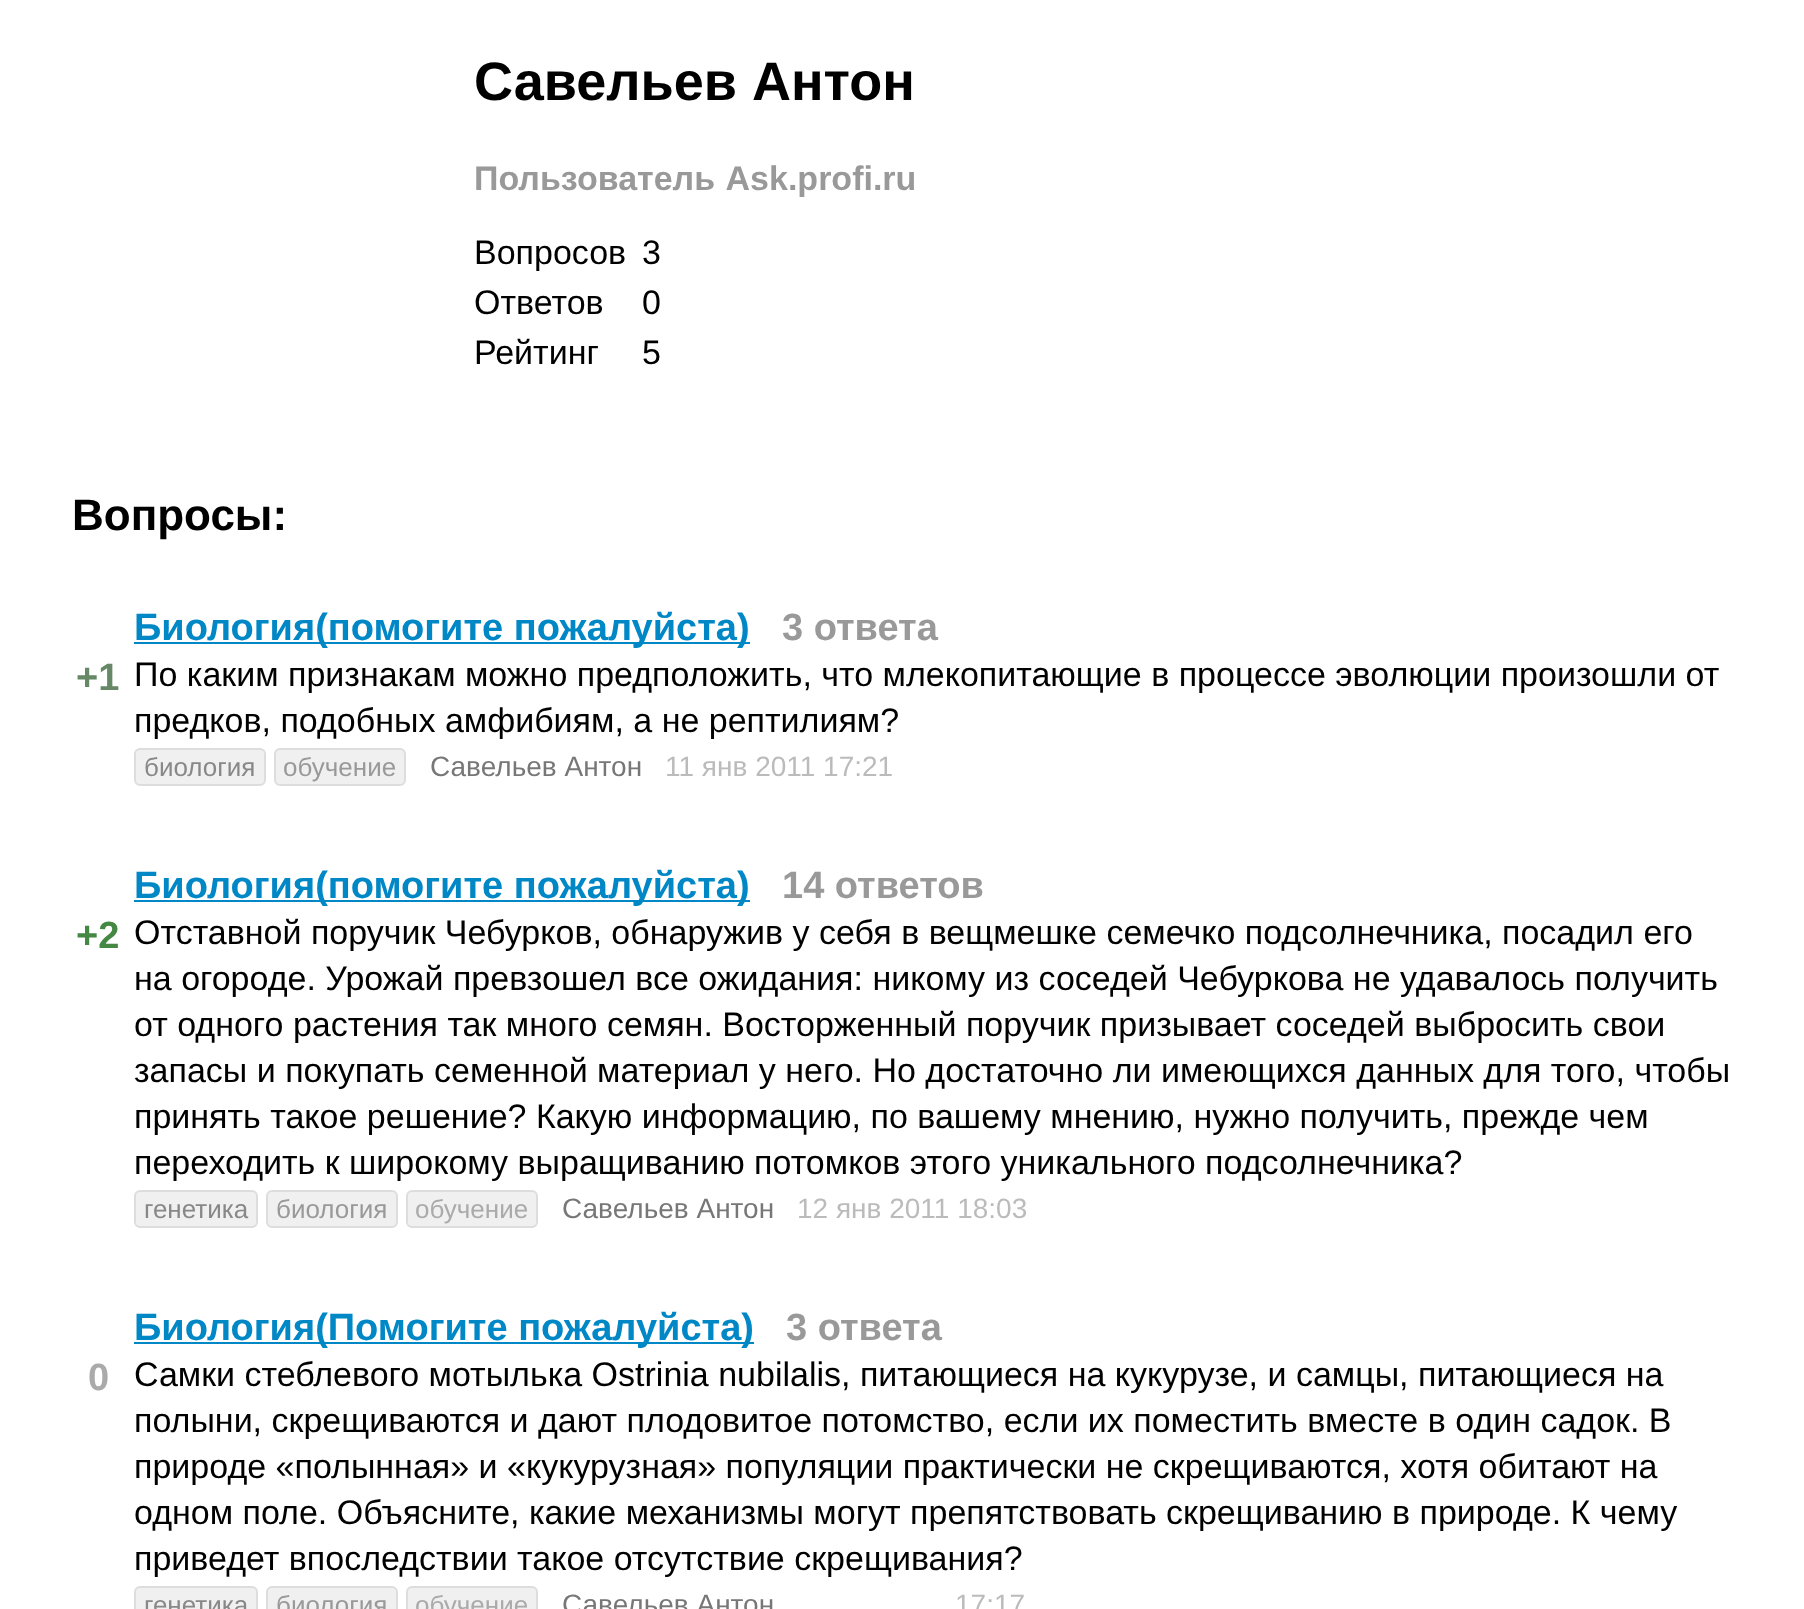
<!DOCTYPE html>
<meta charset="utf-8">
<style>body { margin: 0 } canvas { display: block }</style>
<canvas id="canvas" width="1804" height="1609"></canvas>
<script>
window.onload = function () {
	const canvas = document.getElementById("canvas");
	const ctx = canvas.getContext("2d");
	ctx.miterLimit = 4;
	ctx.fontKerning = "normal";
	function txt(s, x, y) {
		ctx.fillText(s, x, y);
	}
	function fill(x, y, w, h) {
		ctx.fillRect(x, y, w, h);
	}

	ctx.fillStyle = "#FFFFFF";
	fill(0, 0, 1804, 1609);
	ctx.fillStyle = "#0087C6";
	fill(134, 642, 616, 2);
	ctx.fillStyle = "#F0F0F0";
	ctx.beginPath();
	ctx.roundRect(135, 749, 130, 36, 5);
	ctx.fill();
	ctx.strokeStyle = "#DDDDDD";
	ctx.lineWidth = 2;
	ctx.stroke();
	ctx.beginPath();
	ctx.roundRect(275, 749, 130, 36, 5);
	ctx.fill();
	ctx.stroke();
	ctx.fillStyle = "#0087C6";
	fill(134, 900, 616, 2);
	ctx.fillStyle = "#F0F0F0";
	ctx.beginPath();
	ctx.roundRect(135, 1191, 122, 36, 5);
	ctx.fill();
	ctx.stroke();
	ctx.beginPath();
	ctx.roundRect(267, 1191, 130, 36, 5);
	ctx.fill();
	ctx.stroke();
	ctx.beginPath();
	ctx.roundRect(407, 1191, 130, 36, 5);
	ctx.fill();
	ctx.stroke();
	ctx.fillStyle = "#0087C6";
	fill(134, 1342, 620, 2);
	ctx.fillStyle = "#F0F0F0";
	ctx.beginPath();
	ctx.roundRect(135, 1587, 122, 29, 5);
	ctx.fill();
	ctx.stroke();
	ctx.beginPath();
	ctx.roundRect(267, 1587, 130, 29, 5);
	ctx.fill();
	ctx.stroke();
	ctx.beginPath();
	ctx.roundRect(407, 1587, 130, 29, 5);
	ctx.fill();
	ctx.stroke();
	ctx.font = "bold 54px Liberation Sans";
	ctx.fillStyle = "#000000";
	txt("Савельев Антон", 474, 100);
	ctx.wordSpacing = "1px";
	ctx.font = "bold 34px Liberation Sans";
	ctx.fillStyle = "#999999";
	txt("Пользователь Ask.profi.ru", 474, 190);
	ctx.wordSpacing = "0px";
	ctx.font = "34px Liberation Sans";
	ctx.fillStyle = "#000000";
	txt("Вопросов", 474, 264);
	txt("3", 642, 264);
	txt("Ответов", 474, 314);
	txt("0", 642, 314);
	txt("Рейтинг", 474, 364);
	txt("5", 642, 364);
	ctx.font = "bold 44px Liberation Sans";
	txt("Вопросы:", 72, 530);
	ctx.font = "bold 38px Liberation Sans";
	ctx.fillStyle = "#668866";
	txt("+1", 76, 690);
	ctx.fillStyle = "#0087C6";
	txt("Биология(помогите пожалуйста)", 134, 640);
	ctx.fillStyle = "#999999";
	txt("3 ответа", 782, 640);
	ctx.font = "34px Liberation Sans";
	ctx.fillStyle = "#000000";
	txt("По каким признакам можно предположить, что млекопитающие в процессе эволюции произошли от", 134, 686);
	txt("предков, подобных амфибиям, а не рептилиям?", 134, 732);
	ctx.font = "26px Liberation Sans";
	ctx.fillStyle = "#888888";
	txt("биология", 144, 776);
	ctx.fillStyle = "#999999";
	txt("обучение", 283, 776);
	ctx.font = "28px Liberation Sans";
	ctx.fillStyle = "#777777";
	txt("Савельев Антон", 430, 776);
	ctx.fillStyle = "#BBBBBB";
	txt("11 янв 2011 17:21", 665, 776);
	ctx.font = "bold 38px Liberation Sans";
	ctx.fillStyle = "#448844";
	txt("+2", 76, 948);
	ctx.fillStyle = "#0087C6";
	txt("Биология(помогите пожалуйста)", 134, 898);
	ctx.fillStyle = "#999999";
	txt("14 ответов", 782, 898);
	ctx.font = "34px Liberation Sans";
	ctx.fillStyle = "#000000";
	txt("Отставной поручик Чебурков, обнаружив у себя в вещмешке семечко подсолнечника, посадил его", 134, 944);
	txt("на огороде. Урожай превзошел все ожидания: никому из соседей Чебуркова не удавалось получить", 134, 990);
	txt("от одного растения так много семян. Восторженный поручик призывает соседей выбросить свои", 134, 1036);
	txt("запасы и покупать семенной материал у него. Но достаточно ли имеющихся данных для того, чтобы", 134, 1082);
	txt("принять такое решение? Какую информацию, по вашему мнению, нужно получить, прежде чем", 134, 1128);
	txt("переходить к широкому выращиванию потомков этого уникального подсолнечника?", 134, 1174);
	ctx.font = "26px Liberation Sans";
	ctx.fillStyle = "#888888";
	txt("генетика", 144, 1218);
	ctx.fillStyle = "#999999";
	txt("биология", 276, 1218);
	ctx.fillStyle = "#AAAAAA";
	txt("обучение", 415, 1218);
	ctx.font = "28px Liberation Sans";
	ctx.fillStyle = "#777777";
	txt("Савельев Антон", 562, 1218);
	ctx.fillStyle = "#BBBBBB";
	txt("12 янв 2011 18:03", 797, 1218);
	ctx.font = "bold 38px Liberation Sans";
	ctx.fillStyle = "#AAAAAA";
	txt("0", 88, 1390);
	ctx.fillStyle = "#0087C6";
	txt("Биология(Помогите пожалуйста)", 134, 1340);
	ctx.fillStyle = "#999999";
	txt("3 ответа", 786, 1340);
	ctx.font = "34px Liberation Sans";
	ctx.fillStyle = "#000000";
	txt("Самки стеблевого мотылька Ostrinia nubilalis, питающиеся на кукурузе, и самцы, питающиеся на", 134, 1386);
	txt("полыни, скрещиваются и дают плодовитое потомство, если их поместить вместе в один садок. В", 134, 1432);
	txt("природе «полынная» и «кукурузная» популяции практически не скрещиваются, хотя обитают на", 134, 1478);
	txt("одном поле. Объясните, какие механизмы могут препятствовать скрещиванию в природе. К чему", 134, 1524);
	txt("приведет впоследствии такое отсутствие скрещивания?", 134, 1570);
	ctx.font = "26px Liberation Sans";
	ctx.fillStyle = "#888888";
	txt("генетика", 144, 1614);
	ctx.fillStyle = "#999999";
	txt("биология", 276, 1614);
	ctx.fillStyle = "#AAAAAA";
	txt("обучение", 415, 1614);
	ctx.font = "28px Liberation Sans";
	ctx.fillStyle = "#777777";
	txt("Савельев Антон", 562, 1614);
	ctx.fillStyle = "#BBBBBB";
	txt("17:17", 955, 1614);
};
</script>
